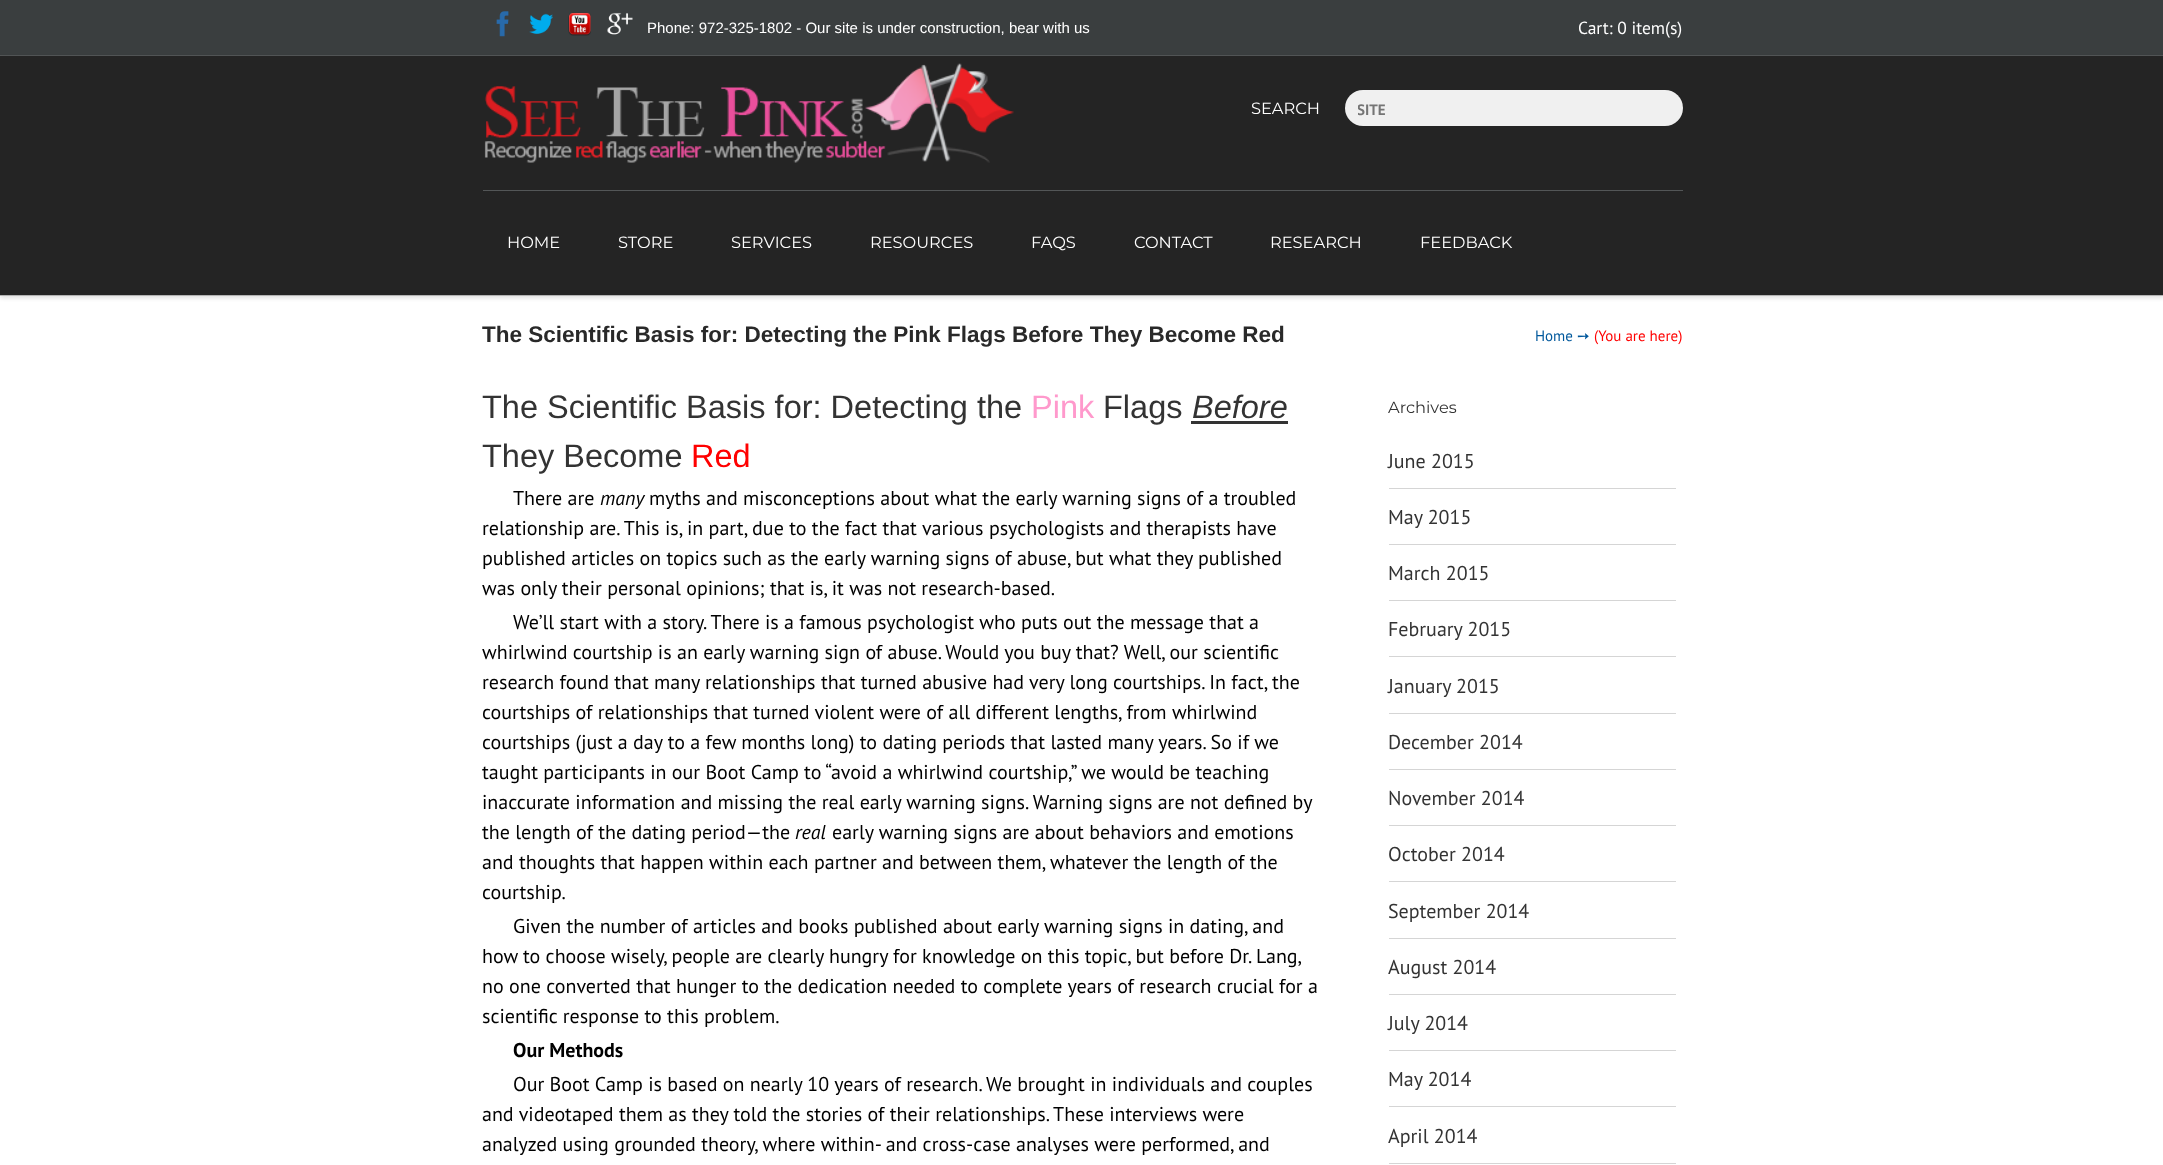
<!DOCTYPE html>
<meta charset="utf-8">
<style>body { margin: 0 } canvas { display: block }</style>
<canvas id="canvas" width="2163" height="1165"></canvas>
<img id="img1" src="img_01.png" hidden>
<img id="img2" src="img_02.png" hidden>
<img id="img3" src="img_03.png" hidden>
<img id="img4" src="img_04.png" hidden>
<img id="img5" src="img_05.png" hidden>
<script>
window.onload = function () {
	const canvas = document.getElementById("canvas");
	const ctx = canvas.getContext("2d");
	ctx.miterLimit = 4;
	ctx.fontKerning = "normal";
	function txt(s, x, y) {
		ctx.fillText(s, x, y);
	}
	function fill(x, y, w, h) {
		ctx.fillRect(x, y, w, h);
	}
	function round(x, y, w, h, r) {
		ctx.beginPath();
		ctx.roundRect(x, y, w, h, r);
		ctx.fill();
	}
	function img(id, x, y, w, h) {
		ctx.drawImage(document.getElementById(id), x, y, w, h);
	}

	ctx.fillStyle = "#FFFFFF";
	fill(0, 0, 2163, 1165);
	ctx.fillStyle = "#3A3E3F";
	fill(0, 0, 2163, 55);
	ctx.fillStyle = "#535657";
	fill(0, 55, 2163, 1);
	img("img1", 496, 11, 13, 26);
	img("img2", 529, 13, 24, 21);
	img("img3", 568, 12, 23, 24);
	img("img4", 607, 12, 26, 23);
	ctx.fillStyle = "rgba(0, 0, 0, 0.12)";
	ctx.filter = "blur(2px)";
	ctx.beginPath();
	ctx.rect(0, 58, 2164, 240);
	ctx.fill();
	ctx.filter = "none";
	ctx.fillStyle = "#242424";
	fill(0, 56, 2163, 239);
	ctx.fillStyle = "#B3B3B3";
	fill(0, 295, 2163, 1);
	img("img5", 484, 63, 530, 100);
	ctx.fillStyle = "#F0F0F0";
	round(1345, 90, 338, 36, 18);
	ctx.fillStyle = "#535657";
	fill(483, 190, 1200, 1);
	ctx.fillStyle = "#333333";
	fill(1191, 421, 97, 3);
	ctx.fillStyle = "#D5D5D5";
	fill(1389, 488, 287, 1);
	fill(1389, 544, 287, 1);
	fill(1389, 600, 287, 1);
	fill(1389, 656, 287, 1);
	fill(1389, 713, 287, 1);
	fill(1389, 769, 287, 1);
	fill(1389, 825, 287, 1);
	fill(1389, 881, 287, 1);
	fill(1389, 938, 287, 1);
	fill(1389, 994, 287, 1);
	fill(1389, 1050, 287, 1);
	fill(1389, 1106, 287, 1);
	fill(1389, 1163, 287, 1);
	ctx.font = "15px Liberation Sans";
	ctx.fillStyle = "#FFFFFF";
	txt("Phone: 972-325-1802 - Our site is under construction, bear with us", 647, 33);
	ctx.font = "17.5px PT Sans";
	txt("Cart: 0 item(s)", 1578, 34);
	ctx.font = "16.25px Montserrat";
	txt("SEARCH", 1251, 114);
	ctx.save();
	ctx.beginPath();
	ctx.rect(1358, 100, 312, 19);
	ctx.clip();
	ctx.font = "bold 15px PT Sans";
	ctx.fillStyle = "#757575";
	txt("SITE", 1357, 115);
	ctx.restore();
	txt("HOME", 507, 248);
	txt("STORE", 618, 248);
	txt("SERVICES", 731, 248);
	txt("RESOURCES", 870, 248);
	txt("FAQS", 1031, 248);
	txt("CONTACT", 1134, 248);
	txt("RESEARCH", 1270, 248);
	txt("FEEDBACK", 1420, 248);
	ctx.font = "bold 22.5px Liberation Sans";
	ctx.fillStyle = "#292929";
	txt("The Scientific Basis for: Detecting the Pink Flags Before They Become Red", 482, 342);
	ctx.font = "15px PT Sans";
	ctx.fillStyle = "#00589C";
	txt("Home", 1535, 341);
	ctx.font = "15px DejaVu Sans";
	txt("➙", 1577, 341);
	ctx.font = "15px PT Sans";
	ctx.fillStyle = "#FF0000";
	txt("(You are here)", 1594, 341);
	ctx.font = "32.5px Liberation Sans";
	ctx.fillStyle = "#333333";
	txt("The Scientific Basis for: Detecting the", 482, 418);
	ctx.fillStyle = "#FF99CC";
	txt("Pink", 1031, 418);
	ctx.fillStyle = "#333333";
	txt("Flags", 1103, 418);
	ctx.font = "italic 32.5px Liberation Sans";
	txt("Before", 1192, 418);
	ctx.font = "32.5px Liberation Sans";
	txt("They Become", 482, 467);
	ctx.fillStyle = "#FF0000";
	txt("Red", 691, 467);
	ctx.font = "20px PT Sans";
	ctx.fillStyle = "#000000";
	txt("There are", 513, 505);
	ctx.font = "italic 20px PT Sans";
	txt("many", 600, 505);
	ctx.font = "20px PT Sans";
	txt("myths and misconceptions about what the early warning signs of a troubled", 649, 505);
	txt("relationship are. This is, in part, due to the fact that various psychologists and therapists have", 482, 535);
	txt("published articles on topics such as the early warning signs of abuse, but what they published", 482, 565);
	txt("was only their personal opinions; that is, it was not research-based.", 482, 595);
	txt("We’ll start with a story. There is a famous psychologist who puts out the message that a", 513, 629);
	txt("whirlwind courtship is an early warning sign of abuse. Would you buy that? Well, our scientific", 482, 659);
	txt("research found that many relationships that turned abusive had very long courtships. In fact, the", 482, 689);
	txt("courtships of relationships that turned violent were of all different lengths, from whirlwind", 482, 719);
	txt("courtships (just a day to a few months long) to dating periods that lasted many years. So if we", 482, 749);
	txt("taught participants in our Boot Camp to “avoid a whirlwind courtship,” we would be teaching", 482, 779);
	txt("inaccurate information and missing the real early warning signs. Warning signs are not defined by", 482, 809);
	txt("the length of the dating period—the", 482, 839);
	ctx.font = "italic 20px PT Sans";
	txt("real", 795, 839);
	ctx.font = "20px PT Sans";
	txt("early warning signs are about behaviors and emotions", 832, 839);
	txt("and thoughts that happen within each partner and between them, whatever the length of the", 482, 869);
	txt("courtship.", 482, 899);
	txt("Given the number of articles and books published about early warning signs in dating, and", 513, 933);
	txt("how to choose wisely, people are clearly hungry for knowledge on this topic, but before Dr. Lang,", 482, 963);
	txt("no one converted that hunger to the dedication needed to complete years of research crucial for a", 482, 993);
	txt("scientific response to this problem.", 482, 1023);
	ctx.font = "bold 20px PT Sans";
	txt("Our Methods", 513, 1057);
	ctx.font = "20px PT Sans";
	txt("Our Boot Camp is based on nearly 10 years of research. We brought in individuals and couples", 513, 1091);
	txt("and videotaped them as they told the stories of their relationships. These interviews were", 482, 1121);
	txt("analyzed using grounded theory, where within- and cross-case analyses were performed, and", 482, 1151);
	ctx.font = "16.25px Montserrat";
	ctx.fillStyle = "#333333";
	txt("Archives", 1388, 413);
	ctx.font = "20px PT Sans";
	txt("June 2015", 1388, 468);
	txt("May 2015", 1388, 524);
	txt("March 2015", 1388, 580);
	txt("February 2015", 1388, 636);
	txt("January 2015", 1388, 693);
	txt("December 2014", 1388, 749);
	txt("November 2014", 1388, 805);
	txt("October 2014", 1388, 861);
	txt("September 2014", 1388, 918);
	txt("August 2014", 1388, 974);
	txt("July 2014", 1388, 1030);
	txt("May 2014", 1388, 1086);
	txt("April 2014", 1388, 1143);
};
</script>
